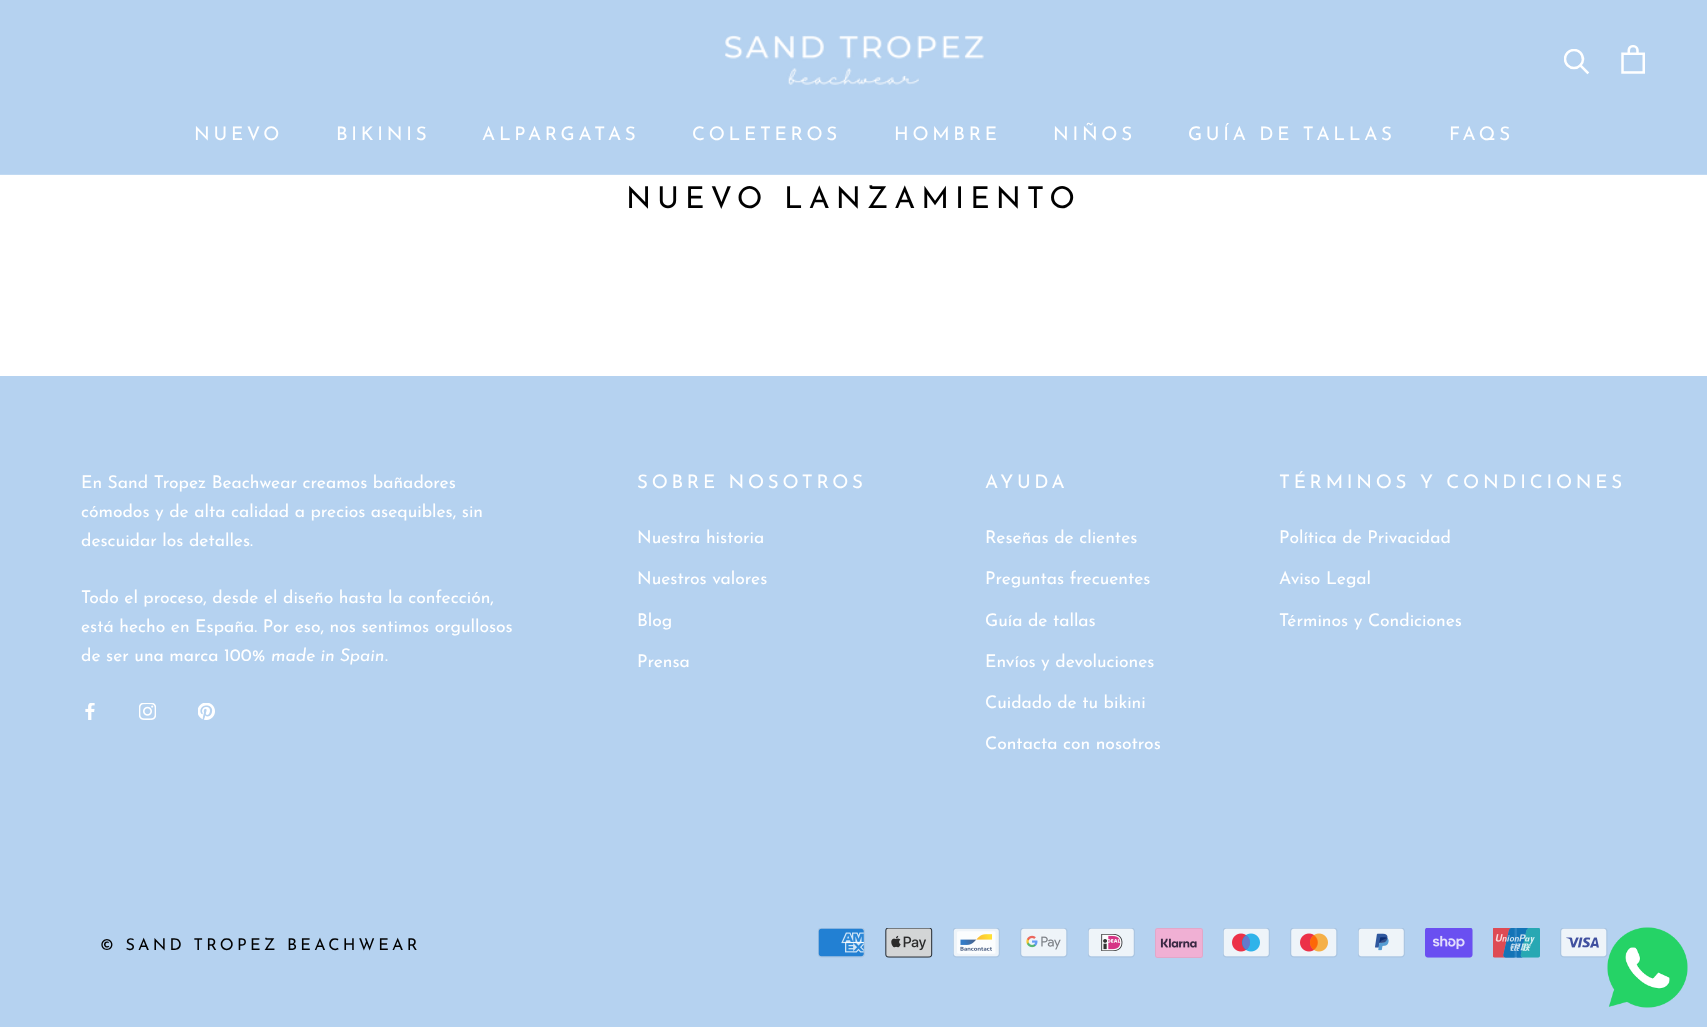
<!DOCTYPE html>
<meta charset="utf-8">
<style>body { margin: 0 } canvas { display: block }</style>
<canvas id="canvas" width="1707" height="1027"></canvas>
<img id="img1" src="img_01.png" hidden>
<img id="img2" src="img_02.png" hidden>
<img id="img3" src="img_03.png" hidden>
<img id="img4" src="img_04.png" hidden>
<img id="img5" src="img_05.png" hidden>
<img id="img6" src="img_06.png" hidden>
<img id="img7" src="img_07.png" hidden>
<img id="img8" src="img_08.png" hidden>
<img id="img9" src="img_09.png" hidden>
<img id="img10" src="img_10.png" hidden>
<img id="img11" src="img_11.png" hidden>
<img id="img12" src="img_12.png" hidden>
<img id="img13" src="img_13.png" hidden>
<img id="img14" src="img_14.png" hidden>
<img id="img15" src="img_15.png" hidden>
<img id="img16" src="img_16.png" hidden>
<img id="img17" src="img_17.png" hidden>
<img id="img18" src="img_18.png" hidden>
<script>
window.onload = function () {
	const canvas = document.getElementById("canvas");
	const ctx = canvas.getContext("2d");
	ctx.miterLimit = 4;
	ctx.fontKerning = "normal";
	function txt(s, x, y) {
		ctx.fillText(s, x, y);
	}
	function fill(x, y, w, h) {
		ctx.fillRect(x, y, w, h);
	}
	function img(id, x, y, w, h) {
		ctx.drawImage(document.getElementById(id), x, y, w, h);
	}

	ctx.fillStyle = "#FFFFFF";
	fill(0, 0, 1707, 1027);
	ctx.fillStyle = "#B5D2F0";
	fill(0, 0, 1707, 174);
	ctx.fillStyle = "#C0D9F2";
	fill(0, 174, 1707, 1);
	img("img1", 725, 35, 259, 50);
	ctx.beginPath();
	ctx.moveTo(1587.5, 72.5);
	ctx.lineTo(1580.5, 65.5);
	ctx.strokeStyle = "#FFFFFF";
	ctx.lineWidth = 2.5;
	ctx.lineCap = "square";
	ctx.stroke();
	ctx.save();
	ctx.beginPath();
	ctx.rect(1564, 49, 26, 26);
	ctx.clip();
	ctx.beginPath();
	ctx.arc(1574, 59, 9, 0, Math.PI * 2);
	ctx.stroke();
	ctx.restore();
	img("img2", 1621, 45, 24, 29);
	ctx.fillStyle = "#B5D2F0";
	fill(0, 376, 1707, 651);
	img("img3", 85, 703, 10, 17);
	img("img4", 139, 703, 17, 17);
	img("img5", 198, 703, 17, 17);
	img("img6", 818, 928, 47, 30);
	img("img7", 885, 928, 48, 30);
	img("img8", 953, 928, 47, 30);
	img("img9", 1020, 928, 48, 30);
	img("img10", 1088, 928, 47, 30);
	img("img11", 1155, 928, 48, 30);
	img("img12", 1223, 928, 47, 30);
	img("img13", 1290, 928, 48, 30);
	img("img14", 1358, 928, 47, 30);
	img("img15", 1425, 928, 48, 30);
	img("img16", 1493, 928, 47, 30);
	img("img17", 1560, 928, 48, 30);
	img("img18", 1607, 927, 81, 81);
	ctx.letterSpacing = "3.75px";
	ctx.font = "18.75px Josefin Sans";
	ctx.fillStyle = "#FFFFFF";
	txt("NUEVO", 194, 140);
	txt("BIKINIS", 336, 140);
	txt("ALPARGATAS", 482, 140);
	txt("COLETEROS", 692, 140);
	txt("HOMBRE", 894, 140);
	txt("NIÑOS", 1053, 140);
	txt("GUÍA DE TALLAS", 1188, 140);
	txt("FAQS", 1449, 140);
	ctx.letterSpacing = "6px";
	ctx.font = "30px Josefin Sans";
	ctx.fillStyle = "#000000";
	txt("NUEVO LANZAMIENTO", 626, 208);
	ctx.letterSpacing = "0px";
	ctx.font = "17.5px Josefin Sans";
	ctx.fillStyle = "#FFFFFF";
	txt("En Sand Tropez Beachwear creamos bañadores", 81, 488);
	txt("cómodos y de alta calidad a precios asequibles, sin", 81, 517);
	txt("descuidar los detalles.", 81, 546);
	txt("Todo el proceso, desde el diseño hasta la confección,", 81, 603);
	txt("está hecho en España. Por eso, nos sentimos orgullosos", 81, 632);
	txt("de ser una marca 100%", 81, 661);
	ctx.font = "italic 17.5px Josefin Sans";
	txt("made in Spain", 271, 661);
	ctx.font = "17.5px Josefin Sans";
	txt(".", 385, 661);
	ctx.letterSpacing = "3.75px";
	ctx.font = "18.75px Josefin Sans";
	txt("SOBRE NOSOTROS", 637, 488);
	ctx.letterSpacing = "0px";
	ctx.font = "17.5px Josefin Sans";
	txt("Nuestra historia", 637, 543);
	txt("Nuestros valores", 637, 584);
	txt("Blog", 637, 626);
	txt("Prensa", 637, 667);
	ctx.letterSpacing = "3.75px";
	ctx.font = "18.75px Josefin Sans";
	txt("AYUDA", 985, 488);
	ctx.letterSpacing = "0px";
	ctx.font = "17.5px Josefin Sans";
	txt("Reseñas de clientes", 985, 543);
	txt("Preguntas frecuentes", 985, 584);
	txt("Guía de tallas", 985, 626);
	txt("Envíos y devoluciones", 985, 667);
	txt("Cuidado de tu bikini", 985, 708);
	txt("Contacta con nosotros", 985, 749);
	ctx.letterSpacing = "3.75px";
	ctx.font = "18.75px Josefin Sans";
	txt("TÉRMINOS Y CONDICIONES", 1279, 488);
	ctx.letterSpacing = "0px";
	ctx.font = "17.5px Josefin Sans";
	txt("Política de Privacidad", 1279, 543);
	txt("Aviso Legal", 1279, 584);
	txt("Términos y Condiciones", 1279, 626);
	ctx.letterSpacing = "3.25px";
	ctx.font = "16.25px Josefin Sans";
	ctx.fillStyle = "#000000";
	txt("© SAND TROPEZ BEACHWEAR", 100, 950);
};
</script>
